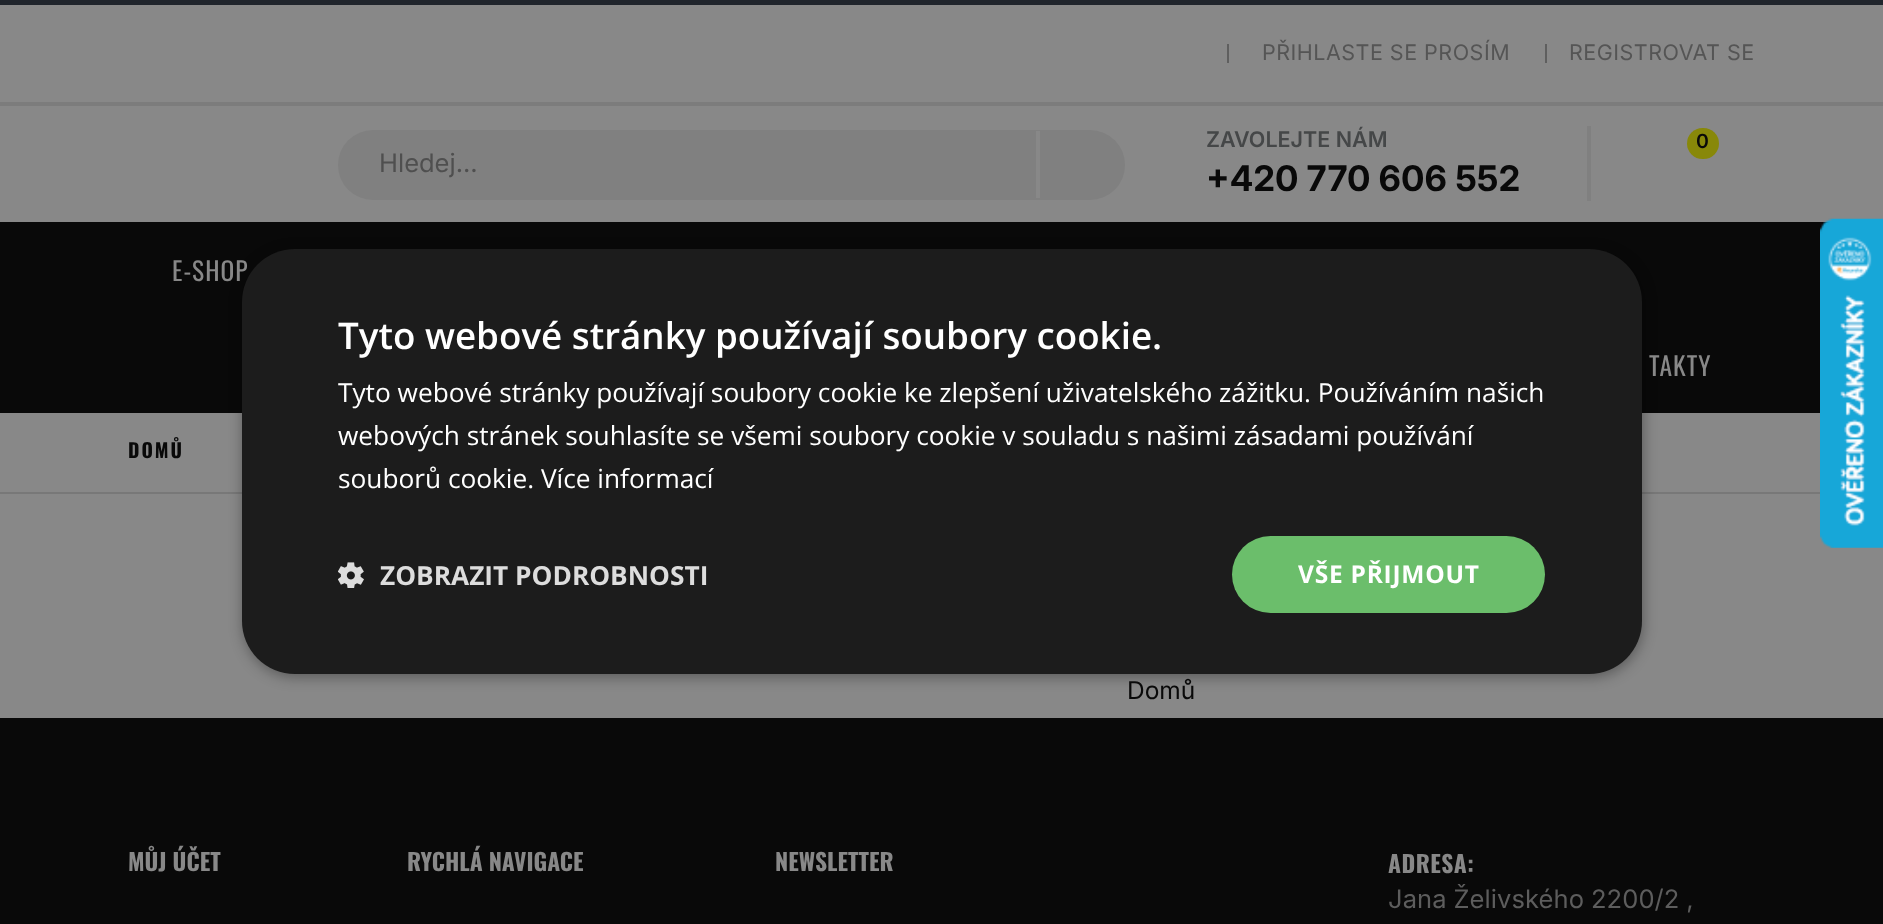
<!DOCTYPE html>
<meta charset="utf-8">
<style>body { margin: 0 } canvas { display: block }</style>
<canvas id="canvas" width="1883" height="924"></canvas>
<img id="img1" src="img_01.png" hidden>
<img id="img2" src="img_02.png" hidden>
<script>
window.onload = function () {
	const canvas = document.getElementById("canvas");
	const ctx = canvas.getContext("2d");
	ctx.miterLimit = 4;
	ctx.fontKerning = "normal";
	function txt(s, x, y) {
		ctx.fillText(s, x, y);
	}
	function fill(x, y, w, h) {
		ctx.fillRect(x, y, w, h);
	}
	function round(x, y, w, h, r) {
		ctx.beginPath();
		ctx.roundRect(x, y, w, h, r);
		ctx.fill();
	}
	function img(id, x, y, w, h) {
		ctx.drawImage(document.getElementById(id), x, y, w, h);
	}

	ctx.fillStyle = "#888888";
	fill(0, 0, 1883, 924);
	ctx.fillStyle = "#20252C";
	fill(0, 0, 1883, 5);
	ctx.fillStyle = "#7C7C7C";
	fill(0, 102, 1883, 4);
	ctx.fillStyle = "#5F5F5F";
	fill(1227, 44, 2, 19);
	fill(1545, 44, 2, 19);
	ctx.fillStyle = "#808080";
	round(338, 130, 787, 70, 35);
	ctx.fillStyle = "#888888";
	fill(1036, 131, 4, 67);
	ctx.fillStyle = "#808080";
	fill(1587, 126, 4, 75);
	ctx.fillStyle = "#888809";
	round(1687, 128, 32, 31, 15.5);
	ctx.fillStyle = "#090909";
	fill(0, 222, 1830, 191);
	ctx.fillStyle = "#787878";
	fill(0, 492, 1820, 2);
	ctx.fillStyle = "#090909";
	fill(0, 718, 1883, 206);
	img("img1", 1820, 218, 63, 330);
	ctx.fillStyle = "rgba(0, 0, 0, 0.35)";
	ctx.filter = "blur(7px)";
	ctx.beginPath();
	ctx.roundRect(243, 252, 1400, 425, 53);
	ctx.fill();
	ctx.filter = "none";
	ctx.letterSpacing = "0.5px";
	ctx.font = "21.5px Inter";
	ctx.fillStyle = "#555555";
	txt("PŘIHLASTE SE PROSÍM", 1262, 60);
	txt("REGISTROVAT SE", 1569, 60);
	ctx.letterSpacing = "0px";
	ctx.font = "25.5px Inter";
	ctx.fillStyle = "#4F4F4F";
	txt("Hledej...", 379, 172);
	ctx.font = "600 21.5px Inter";
	ctx.fillStyle = "#454748";
	txt("ZAVOLEJTE NÁM", 1206, 147);
	ctx.font = "bold 35.25px Inter";
	ctx.fillStyle = "#090909";
	txt("+420 770 606 552", 1206, 191);
	ctx.font = "600 19.5px Inter";
	txt("0", 1696, 148);
	ctx.letterSpacing = "1px";
	ctx.font = "25.5px Oswald";
	ctx.fillStyle = "#888888";
	txt("E-SHOP", 172, 281);
	txt("TAKTY", 1649, 376);
	ctx.letterSpacing = "2px";
	ctx.font = "bold 19.5px Oswald";
	ctx.fillStyle = "#090909";
	txt("DOMŮ", 128, 458);
	ctx.letterSpacing = "0px";
	ctx.font = "24.5px Inter";
	txt("Domů", 1127, 699);
	ctx.font = "bold 23.5px Oswald";
	ctx.fillStyle = "#888888";
	txt("MŮJ ÚČET", 128, 871);
	txt("RYCHLÁ NAVIGACE", 407, 871);
	txt("NEWSLETTER", 775, 871);
	ctx.letterSpacing = "0.5px";
	txt("ADRESA:", 1388, 873);
	ctx.letterSpacing = "0.1px";
	ctx.wordSpacing = "-0.5px";
	ctx.font = "25.5px Inter";
	ctx.fillStyle = "#5D5D5D";
	txt("Jana Želivského 2200/2 ,", 1388, 908);
	ctx.fillStyle = "#1C1C1C";
	round(242, 249, 1400, 425, 53);
	ctx.letterSpacing = "0px";
	ctx.wordSpacing = "0px";
	ctx.font = "600 36.75px Open Sans";
	ctx.fillStyle = "#FFFFFF";
	txt("Tyto webové stránky používají soubory cookie.", 338, 349);
	ctx.font = "26.25px Open Sans";
	txt("Tyto webové stránky používají soubory cookie ke zlepšení uživatelského zážitku. Používáním našich", 338, 402);
	txt("webových stránek souhlasíte se všemi soubory cookie v souladu s našimi zásadami používání", 338, 445);
	txt("souborů cookie. Více informací", 338, 488);
	img("img2", 338, 562, 26, 26);
	ctx.font = "bold 26.25px Open Sans";
	ctx.fillStyle = "#DDDDDD";
	txt("ZOBRAZIT PODROBNOSTI", 380, 585);
	ctx.fillStyle = "#6BBE6B";
	round(1232, 536, 313, 77, 38.5);
	ctx.letterSpacing = "0.75px";
	ctx.font = "bold 24.5px Open Sans";
	ctx.fillStyle = "#FFFFFF";
	txt("VŠE PŘIJMOUT", 1298, 583);
};
</script>
